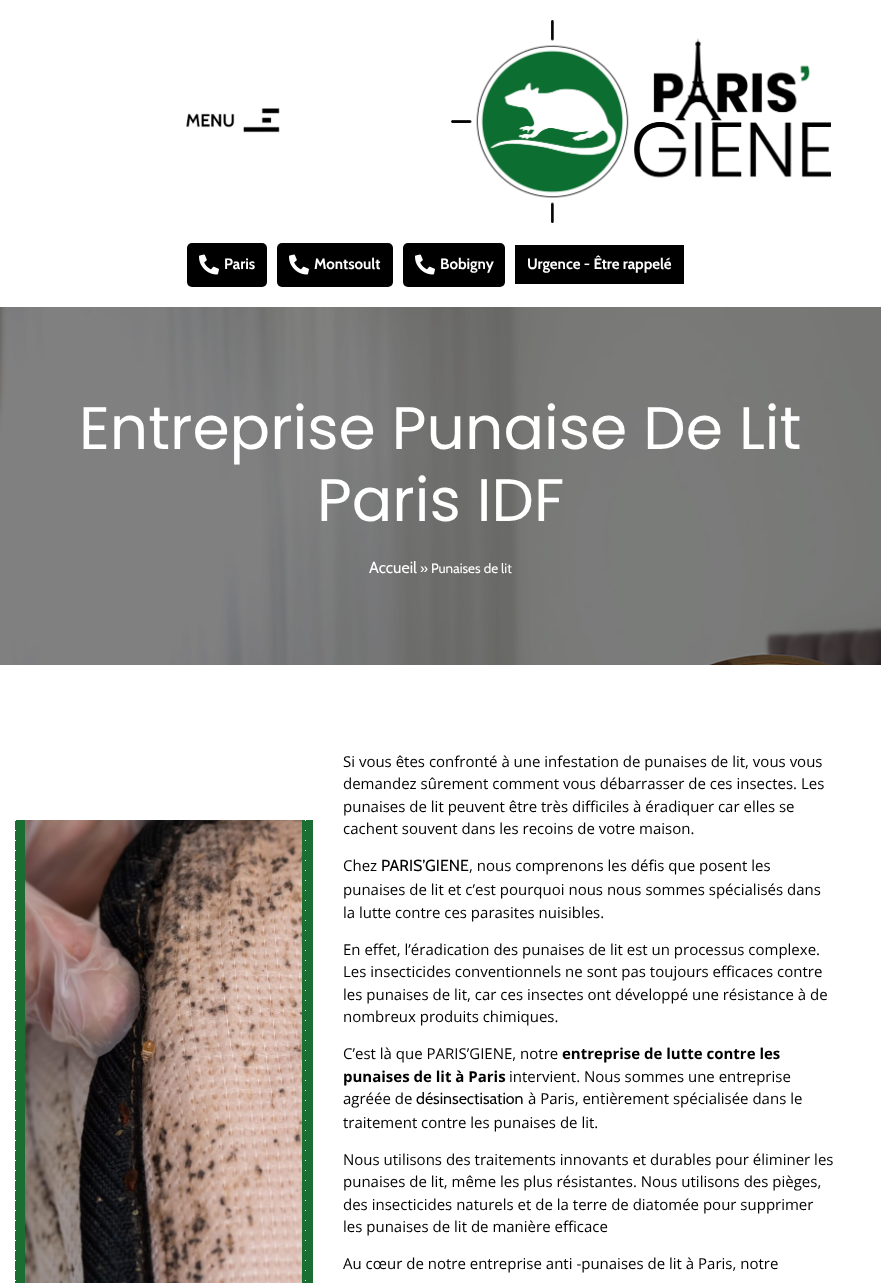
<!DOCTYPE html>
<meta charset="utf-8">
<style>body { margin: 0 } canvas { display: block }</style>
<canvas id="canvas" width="881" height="1283"></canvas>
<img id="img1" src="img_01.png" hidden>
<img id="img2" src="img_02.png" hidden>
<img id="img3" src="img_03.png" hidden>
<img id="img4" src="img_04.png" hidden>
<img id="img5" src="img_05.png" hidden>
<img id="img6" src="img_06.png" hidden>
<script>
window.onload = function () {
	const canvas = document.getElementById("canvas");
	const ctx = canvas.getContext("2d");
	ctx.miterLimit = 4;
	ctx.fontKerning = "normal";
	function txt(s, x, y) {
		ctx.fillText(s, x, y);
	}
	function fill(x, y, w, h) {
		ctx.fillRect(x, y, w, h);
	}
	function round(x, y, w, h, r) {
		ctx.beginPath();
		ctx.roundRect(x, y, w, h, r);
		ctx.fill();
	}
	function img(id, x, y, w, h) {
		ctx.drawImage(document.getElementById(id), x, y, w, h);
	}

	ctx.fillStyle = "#FFFFFF";
	fill(0, 0, 881, 1283);
	img("img1", 186, 108, 94, 25);
	img("img2", 451, 20, 380, 203);
	ctx.fillStyle = "#000000";
	round(187, 243, 80, 44, 5);
	img("img3", 199, 254, 20, 21);
	round(277, 243, 116, 44, 5);
	img("img3", 289, 254, 20, 21);
	round(403, 243, 102, 44, 5);
	img("img3", 415, 254, 20, 21);
	fill(515, 245, 169, 39);
	img("img4", 0, 307, 881, 358);
	ctx.fillStyle = "#1B6E31";
	fill(15, 820, 298, 463);
	img("img5", 15, 820, 291, 461);
	img("img6", 25, 820, 277, 463);
	ctx.font = "bold 15px Cabin";
	ctx.fillStyle = "#FFFFFF";
	txt("Paris", 224, 269);
	txt("Montsoult", 314, 269);
	txt("Bobigny", 440, 269);
	txt("Urgence - Être rappelé", 527, 269);
	ctx.font = "60px Poppins";
	txt("Entreprise Punaise De Lit", 79, 449);
	txt("Paris IDF", 317, 521);
	ctx.font = "16px Cabin";
	txt("Accueil", 369, 573);
	ctx.font = "13.5px Cabin";
	txt("» Punaises de lit", 420, 573);
	ctx.font = "15px Open Sans";
	ctx.fillStyle = "#000000";
	txt("Si vous êtes confronté à une infestation de punaises de lit, vous vous", 343, 767);
	txt("demandez sûrement comment vous débarrasser de ces insectes. Les", 343, 789);
	txt("punaises de lit peuvent être très difficiles à éradiquer car elles se", 343, 812);
	txt("cachent souvent dans les recoins de votre maison.", 343, 834);
	txt("Chez", 343, 871);
	ctx.font = "16px Cabin";
	txt("PARIS’GIENE", 381, 871);
	ctx.font = "15px Open Sans";
	txt(", nous comprenons les défis que posent les", 469, 871);
	txt("punaises de lit et c’est pourquoi nous nous sommes spécialisés dans", 343, 895);
	txt("la lutte contre ces parasites nuisibles.", 343, 918);
	txt("En effet, l’éradication des punaises de lit est un processus complexe.", 343, 955);
	txt("Les insecticides conventionnels ne sont pas toujours efficaces contre", 343, 977);
	txt("les punaises de lit, car ces insectes ont développé une résistance à de", 343, 1000);
	txt("nombreux produits chimiques.", 343, 1022);
	txt("C’est là que PARIS’GIENE, notre", 343, 1059);
	ctx.font = "bold 15px Open Sans";
	txt("entreprise de lutte contre les", 562, 1059);
	txt("punaises de lit à Paris", 343, 1082);
	ctx.font = "15px Open Sans";
	txt("intervient. Nous sommes une entreprise", 509, 1082);
	txt("agréée de", 343, 1104);
	ctx.font = "16px Cabin";
	txt("désinsectisation", 416, 1104);
	ctx.font = "15px Open Sans";
	txt("à Paris, entièrement spécialisée dans le", 528, 1104);
	txt("traitement contre les punaises de lit.", 343, 1128);
	txt("Nous utilisons des traitements innovants et durables pour éliminer les", 343, 1165);
	txt("punaises de lit, même les plus résistantes. Nous utilisons des pièges,", 343, 1187);
	txt("des insecticides naturels et de la terre de diatomée pour supprimer", 343, 1210);
	txt("les punaises de lit de manière efficace", 343, 1232);
	txt("Au cœur de notre entreprise anti -punaises de lit à Paris, notre", 343, 1269);
};
</script>
